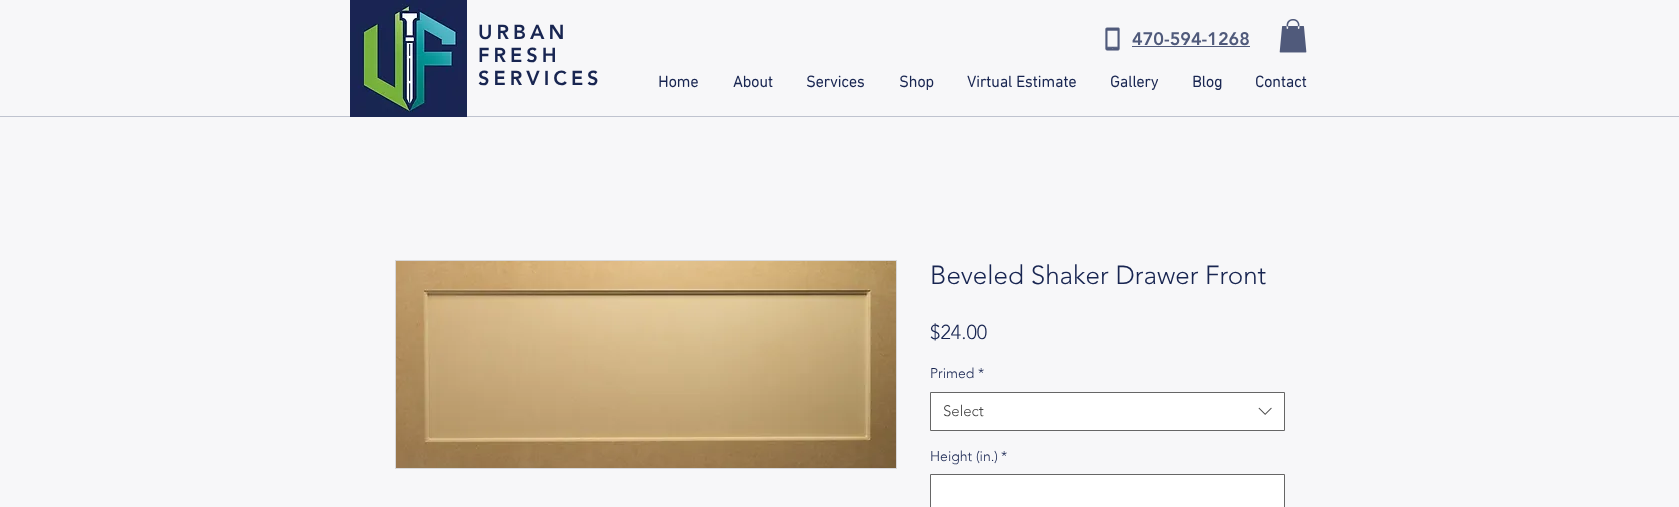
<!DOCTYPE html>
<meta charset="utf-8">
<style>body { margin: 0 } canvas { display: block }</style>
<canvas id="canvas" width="1679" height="507"></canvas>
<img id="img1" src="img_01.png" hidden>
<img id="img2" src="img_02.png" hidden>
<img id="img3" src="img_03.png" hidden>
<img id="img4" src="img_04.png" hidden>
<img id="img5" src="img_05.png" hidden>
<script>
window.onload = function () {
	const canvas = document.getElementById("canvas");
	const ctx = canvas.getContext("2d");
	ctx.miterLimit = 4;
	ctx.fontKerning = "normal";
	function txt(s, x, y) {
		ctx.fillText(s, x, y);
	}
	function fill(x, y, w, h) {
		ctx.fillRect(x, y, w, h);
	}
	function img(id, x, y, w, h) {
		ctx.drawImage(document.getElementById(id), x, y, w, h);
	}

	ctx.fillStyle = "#F7F7F9";
	fill(0, 0, 1679, 507);
	ctx.fillStyle = "#BFC3CF";
	fill(0, 116, 1679, 1);
	img("img1", 350, 0, 117, 117);
	img("img2", 1105, 27, 15, 24);
	ctx.fillStyle = "#505A7B";
	fill(1132, 46, 118, 1);
	img("img3", 1279, 19, 28, 34);
	ctx.strokeStyle = "#D8D8DA";
	ctx.strokeRect(395.5, 260.5, 501, 208);
	img("img4", 396, 261, 500, 207);
	ctx.fillStyle = "#FFFFFF";
	ctx.beginPath();
	ctx.rect(930.5, 392.5, 354, 38);
	ctx.fill();
	ctx.strokeStyle = "#666666";
	ctx.stroke();
	img("img5", 1258, 407, 14, 8);
	ctx.beginPath();
	ctx.rect(930.5, 474.5, 354, 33);
	ctx.fill();
	ctx.stroke();
	ctx.letterSpacing = "4px";
	ctx.font = "900 20px 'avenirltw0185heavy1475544'";
	ctx.fillStyle = "#182551";
	txt("URBAN", 478, 39);
	txt("FRESH", 478, 62);
	txt("SERVICES", 478, 85);
	ctx.letterSpacing = "0px";
	ctx.font = "900 18px 'avenirltw0185heavy1475544'";
	ctx.fillStyle = "#505A7B";
	txt("470-594-1268", 1132, 45);
	ctx.font = "bold 16px 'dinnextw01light'";
	ctx.fillStyle = "#182551";
	txt("Home", 658, 87);
	txt("About", 733, 87);
	txt("Services", 806, 87);
	txt("Shop", 899, 87);
	txt("Virtual Estimate", 967, 87);
	txt("Gallery", 1110, 87);
	txt("Blog", 1192, 87);
	txt("Contact", 1255, 87);
	ctx.font = "300 26px 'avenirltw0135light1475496'";
	txt("Beveled Shaker Drawer Front", 930, 284);
	ctx.font = "300 20px 'avenirltw0135light1475496'";
	txt("$24.00", 930, 339);
	ctx.font = "300 14px 'avenirltw0135light1475496'";
	txt("Primed", 930, 378);
	txt("*", 978, 378);
	ctx.font = "300 15px 'avenirltw0135light1475496'";
	ctx.fillStyle = "#444444";
	txt("Select", 943, 416);
	ctx.font = "300 14px 'avenirltw0135light1475496'";
	ctx.fillStyle = "#182551";
	txt("Height (in.)", 930, 461);
	txt("*", 1001, 461);
};
</script>
